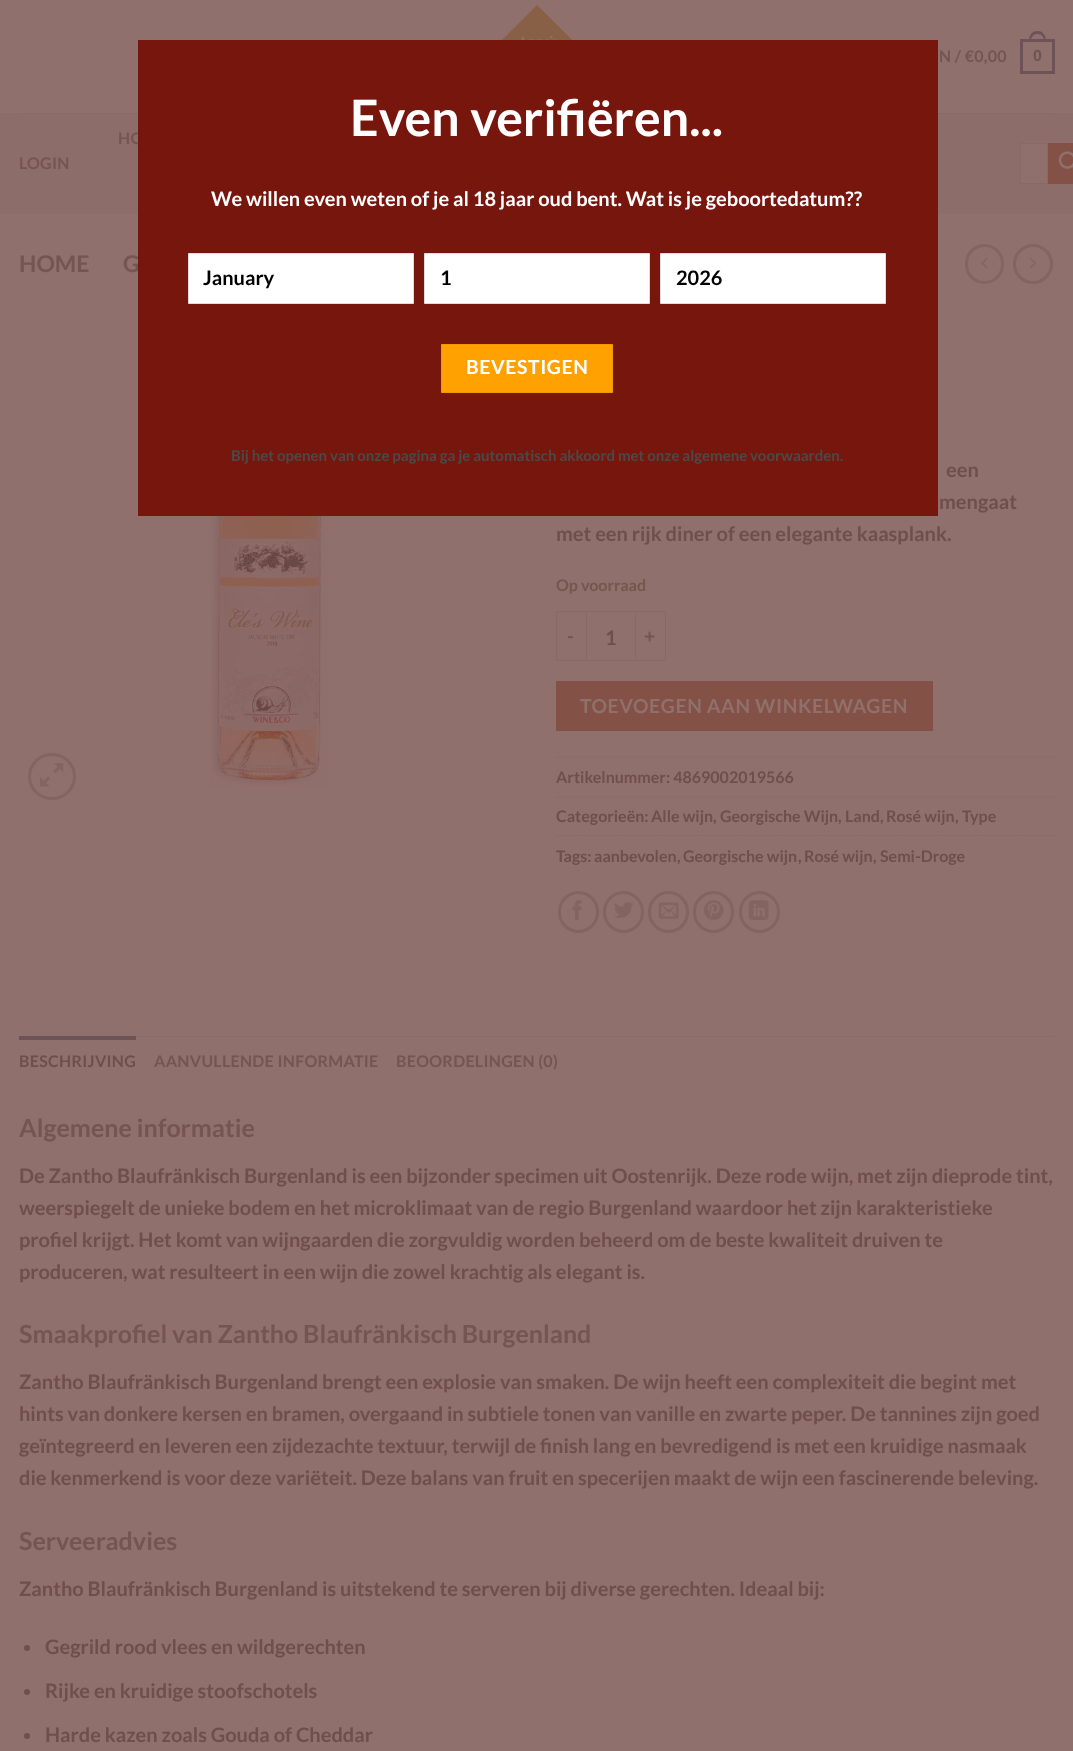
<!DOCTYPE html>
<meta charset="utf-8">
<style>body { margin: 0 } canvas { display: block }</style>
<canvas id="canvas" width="1073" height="1751"></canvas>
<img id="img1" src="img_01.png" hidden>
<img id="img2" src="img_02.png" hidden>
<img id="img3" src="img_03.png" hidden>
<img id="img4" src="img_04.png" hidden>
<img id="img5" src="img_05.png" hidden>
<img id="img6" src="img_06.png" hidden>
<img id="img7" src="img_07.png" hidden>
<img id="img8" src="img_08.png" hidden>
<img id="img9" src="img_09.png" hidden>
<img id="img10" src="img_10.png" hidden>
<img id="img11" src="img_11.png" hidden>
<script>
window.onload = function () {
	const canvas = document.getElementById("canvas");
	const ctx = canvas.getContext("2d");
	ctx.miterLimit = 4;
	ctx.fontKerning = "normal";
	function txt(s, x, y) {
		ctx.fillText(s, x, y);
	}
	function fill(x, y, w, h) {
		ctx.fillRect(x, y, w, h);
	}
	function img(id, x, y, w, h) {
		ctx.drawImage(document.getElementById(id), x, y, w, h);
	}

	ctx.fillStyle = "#8F706C";
	fill(0, 0, 1073, 1751);
	img("img1", 485, 5, 104, 35);
	ctx.strokeStyle = "#6E5356";
	ctx.lineWidth = 3;
	ctx.strokeRect(1021.5, 40.5, 32, 32);
	ctx.fillStyle = "#6E5356";
	ctx.beginPath();
	ctx.moveTo(1037.5, 31);
	ctx.bezierCurveTo(1043.5, 31, 1046, 36, 1046, 41);
	ctx.lineTo(1029, 41);
	ctx.bezierCurveTo(1029, 36, 1031.5, 31, 1037.5, 31);
	ctx.closePath();
	ctx.moveTo(1037.5, 34);
	ctx.bezierCurveTo(1042, 34, 1044, 37.5, 1044, 41);
	ctx.lineTo(1031, 41);
	ctx.bezierCurveTo(1031, 37.5, 1033, 34, 1037.5, 34);
	ctx.closePath();
	ctx.fill("evenodd");
	ctx.fillStyle = "#8D6D6A";
	fill(0, 113, 1073, 101);
	ctx.fillStyle = "#8A6A67";
	fill(19, 113, 1036, 1);
	ctx.fillStyle = "#8F706C";
	ctx.beginPath();
	ctx.rect(1020.5, 143.5, 27, 40);
	ctx.fill();
	ctx.strokeStyle = "#896966";
	ctx.lineWidth = 1;
	ctx.stroke();
	ctx.fillStyle = "#845147";
	ctx.beginPath();
	ctx.rect(1048.5, 143.5, 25, 40);
	ctx.fill();
	ctx.strokeStyle = "#825047";
	ctx.stroke();
	img("img2", 1058, 151, 15, 18);
	ctx.beginPath();
	ctx.roundRect(966.5, 245.5, 36, 37, 18);
	ctx.strokeStyle = "#846461";
	ctx.lineWidth = 3;
	ctx.stroke();
	img("img3", 981, 258, 7, 11);
	ctx.beginPath();
	ctx.arc(1033, 264, 18.5, 0, Math.PI * 2);
	ctx.stroke();
	img("img4", 1030, 258, 6, 11);
	ctx.beginPath();
	ctx.roundRect(29.5, 754.5, 45, 44, 22);
	ctx.stroke();
	img("img5", 40, 763, 24, 24);
	img("img6", 210, 516, 119, 271);
	ctx.fillStyle = "#896966";
	fill(556, 611, 30, 1);
	fill(556, 660, 30, 1);
	fill(556, 611, 1, 50);
	ctx.strokeStyle = "#896966";
	ctx.lineWidth = 1;
	ctx.strokeRect(586.5, 611.5, 49, 49);
	fill(636, 611, 30, 1);
	fill(665, 611, 1, 50);
	fill(636, 660, 30, 1);
	ctx.fillStyle = "#845147";
	ctx.beginPath();
	ctx.rect(556.5, 681.5, 376, 49);
	ctx.fill();
	ctx.strokeStyle = "#825047";
	ctx.stroke();
	ctx.beginPath();
	ctx.moveTo(556, 757);
	ctx.lineTo(1055, 757);
	ctx.strokeStyle = "#896966";
	ctx.lineWidth = 1.2;
	ctx.setLineDash([1.25, 1.25]);
	ctx.stroke();
	ctx.beginPath();
	ctx.moveTo(556, 797);
	ctx.lineTo(1055, 797);
	ctx.stroke();
	ctx.beginPath();
	ctx.moveTo(556, 835.5);
	ctx.lineTo(1055, 835.5);
	ctx.stroke();
	ctx.beginPath();
	ctx.roundRect(559.5, 892.5, 38, 39, 19);
	ctx.strokeStyle = "#846461";
	ctx.lineWidth = 3;
	ctx.setLineDash([]);
	ctx.stroke();
	img("img7", 572, 900, 10, 20);
	ctx.beginPath();
	ctx.roundRect(604.5, 892.5, 38, 39, 19);
	ctx.stroke();
	img("img8", 614, 902, 20, 17);
	ctx.beginPath();
	ctx.roundRect(649.5, 892.5, 38, 39, 19);
	ctx.stroke();
	img("img9", 658, 902, 21, 17);
	ctx.beginPath();
	ctx.roundRect(694.5, 892.5, 38, 39, 19);
	ctx.stroke();
	img("img10", 703, 900, 21, 20);
	ctx.beginPath();
	ctx.roundRect(740.5, 892.5, 38, 39, 19);
	ctx.stroke();
	img("img11", 748, 900, 21, 20);
	ctx.fillStyle = "#8C6C69";
	fill(136, 1036, 919, 1);
	ctx.fillStyle = "#6E5356";
	fill(19, 1036, 117, 4);
	ctx.fillStyle = "#6F4F4C";
	ctx.beginPath();
	ctx.arc(27, 1648, 3, 0, Math.PI * 2);
	ctx.fill();
	ctx.beginPath();
	ctx.arc(27, 1692, 3, 0, Math.PI * 2);
	ctx.fill();
	ctx.beginPath();
	ctx.arc(27, 1736, 3, 0, Math.PI * 2);
	ctx.fill();
	ctx.letterSpacing = "0.3px";
	ctx.font = "bold 16px Lato";
	ctx.fillStyle = "#755552";
	txt("N / €0,00", 939, 62);
	ctx.font = "bold 16px Liberation Sans";
	ctx.fillStyle = "#6E5356";
	txt("0", 1033, 61);
	ctx.font = "bold 16px Lato";
	ctx.fillStyle = "#755552";
	txt("HO", 118, 144);
	txt("LOGIN", 19, 169);
	ctx.letterSpacing = "0px";
	ctx.font = "bold 23px Lato";
	txt("HOME", 19, 272);
	txt("G", 123, 272);
	ctx.font = "bold 20px Lato";
	ctx.fillStyle = "#6F4F4C";
	txt("een", 946, 477);
	txt("mengaat", 939, 509);
	txt("met een rijk diner of een elegante kaasplank.", 556, 541);
	ctx.font = "bold 16px Lato";
	ctx.fillStyle = "#73584B";
	txt("Op voorraad", 556, 591);
	ctx.letterSpacing = "0.6px";
	ctx.font = "bold 19.4px Lato";
	ctx.fillStyle = "#755552";
	txt("-", 567, 643);
	ctx.letterSpacing = "0px";
	ctx.font = "bold 20px Lato";
	ctx.fillStyle = "#6F4F4C";
	txt("1", 605, 645);
	ctx.letterSpacing = "0.6px";
	ctx.font = "bold 19.4px Lato";
	ctx.fillStyle = "#755552";
	txt("+", 644, 643);
	ctx.fillStyle = "#8F706C";
	txt("TOEVOEGEN AAN WINKELWAGEN", 580, 713);
	ctx.letterSpacing = "0px";
	ctx.font = "bold 16px Lato";
	ctx.fillStyle = "#6F4F4C";
	txt("Artikelnummer: 4869002019566", 556, 783);
	txt("Categorieën:", 556, 822);
	txt("Alle wijn", 651, 822);
	txt(",", 713, 822);
	txt("Georgische Wijn", 720, 822);
	txt(",", 838, 822);
	txt("Land", 845, 822);
	txt(",", 880, 822);
	txt("Rosé wijn", 886, 822);
	txt(",", 955, 822);
	txt("Type", 962, 822);
	txt("Tags:", 556, 862);
	txt("aanbevolen", 594, 862);
	txt(",", 677, 862);
	txt("Georgische wijn", 683, 862);
	txt(",", 798, 862);
	txt("Rosé wijn", 804, 862);
	txt(",", 873, 862);
	txt("Semi-Droge", 880, 862);
	ctx.letterSpacing = "0.3px";
	txt("BESCHRIJVING", 19, 1067);
	ctx.fillStyle = "#755552";
	txt("AANVULLENDE INFORMATIE", 154, 1067);
	txt("BEOORDELINGEN (0)", 396, 1067);
	ctx.letterSpacing = "0px";
	ctx.font = "bold 25px Lato";
	txt("Algemene informatie", 19, 1137);
	ctx.font = "bold 20px Lato";
	ctx.fillStyle = "#6F4F4C";
	txt("De Zantho Blaufränkisch Burgenland is een bijzonder specimen uit Oostenrijk. Deze rode wijn, met zijn dieprode tint,", 19, 1183);
	txt("weerspiegelt de unieke bodem en het microklimaat van de regio Burgenland waardoor het zijn karakteristieke", 19, 1215);
	txt("profiel krijgt. Het komt van wijngaarden die zorgvuldig worden beheerd om de beste kwaliteit druiven te", 19, 1247);
	txt("produceren, wat resulteert in een wijn die zowel krachtig als elegant is.", 19, 1279);
	ctx.font = "bold 25px Lato";
	ctx.fillStyle = "#755552";
	txt("Smaakprofiel van Zantho Blaufränkisch Burgenland", 19, 1343);
	ctx.font = "bold 20px Lato";
	ctx.fillStyle = "#6F4F4C";
	txt("Zantho Blaufränkisch Burgenland brengt een explosie van smaken. De wijn heeft een complexiteit die begint met", 19, 1389);
	txt("hints van donkere kersen en bramen, overgaand in subtiele tonen van vanille en zwarte peper. De tannines zijn goed", 19, 1421);
	txt("geïntegreerd en leveren een zijdezachte textuur, terwijl de finish lang en bevredigend is met een kruidige nasmaak", 19, 1453);
	txt("die kenmerkend is voor deze variëteit. Deze balans van fruit en specerijen maakt de wijn een fascinerende beleving.", 19, 1485);
	ctx.font = "bold 25px Lato";
	ctx.fillStyle = "#755552";
	txt("Serveeradvies", 19, 1550);
	ctx.font = "bold 20px Lato";
	ctx.fillStyle = "#6F4F4C";
	txt("Zantho Blaufränkisch Burgenland is uitstekend te serveren bij diverse gerechten. Ideaal bij:", 19, 1596);
	txt("Gegrild rood vlees en wildgerechten", 45, 1654);
	txt("Rijke en kruidige stoofschotels", 45, 1698);
	txt("Harde kazen zoals Gouda of Cheddar", 45, 1742);
	ctx.fillStyle = "#77160D";
	fill(138, 40, 800, 476);
	ctx.wordSpacing = "1px";
	ctx.font = "bold 50px Lato";
	ctx.fillStyle = "#FFFFFF";
	txt("Even verifiëren...", 350, 136);
	ctx.wordSpacing = "0px";
	ctx.font = "bold 20px Lato";
	txt("We willen even weten of je al 18 jaar oud bent. Wat is je geboortedatum??", 211, 206);
	ctx.beginPath();
	ctx.rect(188.5, 253.5, 225, 50);
	ctx.fill();
	ctx.strokeStyle = "#DDDDDD";
	ctx.lineWidth = 1;
	ctx.stroke();
	ctx.fillStyle = "#000000";
	txt("January", 203, 285);
	ctx.fillStyle = "#FFFFFF";
	ctx.beginPath();
	ctx.rect(424.5, 253.5, 225, 50);
	ctx.fill();
	ctx.stroke();
	ctx.fillStyle = "#000000";
	txt("1", 440, 285);
	ctx.fillStyle = "#FFFFFF";
	ctx.beginPath();
	ctx.rect(660.5, 253.5, 225, 50);
	ctx.fill();
	ctx.stroke();
	ctx.fillStyle = "#000000";
	txt("2026", 676, 285);
	ctx.fillStyle = "#FFA100";
	ctx.beginPath();
	ctx.rect(441.5, 344.5, 171, 48);
	ctx.fill();
	ctx.strokeStyle = "#F29900";
	ctx.stroke();
	ctx.letterSpacing = "0.6px";
	ctx.font = "bold 19.4px Lato";
	ctx.fillStyle = "#FFFFFF";
	txt("BEVESTIGEN", 466, 374);
	ctx.letterSpacing = "0px";
	ctx.font = "bold 15px Lato";
	ctx.fillStyle = "#4A4A4A";
	txt("Bij het openen van onze pagina ga je automatisch akkoord met onze algemene voorwaarden.", 231, 461);
};
</script>
